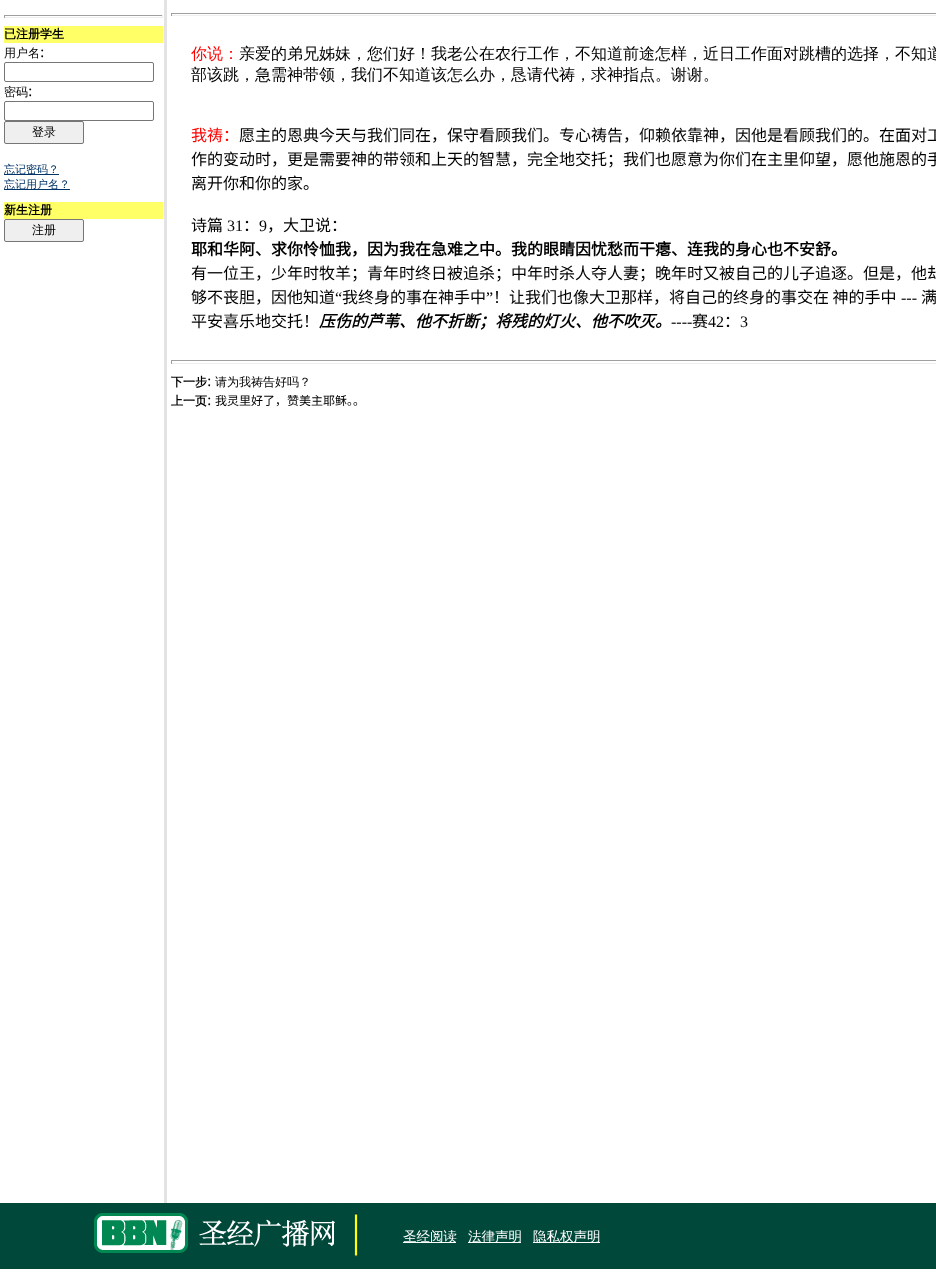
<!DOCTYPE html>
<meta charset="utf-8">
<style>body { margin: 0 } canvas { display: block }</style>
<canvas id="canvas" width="936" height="1285"></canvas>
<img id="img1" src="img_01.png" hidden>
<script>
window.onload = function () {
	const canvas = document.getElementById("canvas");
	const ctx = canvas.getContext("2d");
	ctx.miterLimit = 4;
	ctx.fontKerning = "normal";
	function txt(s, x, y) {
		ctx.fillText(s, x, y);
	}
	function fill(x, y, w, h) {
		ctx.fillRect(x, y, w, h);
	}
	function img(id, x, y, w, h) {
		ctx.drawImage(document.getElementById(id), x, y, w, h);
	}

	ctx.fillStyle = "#FFFFFF";
	fill(0, 0, 936, 1285);
	ctx.fillStyle = "#E3E3E3";
	fill(164, 0, 3, 1203);
	ctx.fillStyle = "#9F9F9F";
	fill(4, 15, 159, 1);
	ctx.fillStyle = "#EEEEEE";
	fill(162, 15, 1, 3);
	fill(4, 17, 159, 1);
	ctx.fillStyle = "#9F9F9F";
	fill(4, 15, 1, 3);
	ctx.fillStyle = "#FFFF66";
	fill(4, 26, 159, 17);
	ctx.beginPath();
	ctx.roundRect(4.5, 62.5, 149, 19, 1.5);
	ctx.strokeStyle = "#767676";
	ctx.stroke();
	ctx.beginPath();
	ctx.roundRect(4.5, 101.5, 149, 19, 1.5);
	ctx.stroke();
	ctx.fillStyle = "#EFEFEF";
	ctx.beginPath();
	ctx.roundRect(4.5, 121.5, 79, 22, 1.5);
	ctx.fill();
	ctx.stroke();
	ctx.fillStyle = "#003366";
	fill(4, 174, 55, 1);
	fill(4, 189, 66, 1);
	ctx.fillStyle = "#FFFF66";
	fill(4, 202, 159, 17);
	ctx.fillStyle = "#EFEFEF";
	ctx.beginPath();
	ctx.roundRect(4.5, 219.5, 79, 22, 1.5);
	ctx.fill();
	ctx.stroke();
	ctx.fillStyle = "#9F9F9F";
	fill(171, 13, 765, 1);
	ctx.fillStyle = "#EEEEEE";
	fill(171, 15, 765, 1);
	ctx.fillStyle = "#9F9F9F";
	fill(171, 13, 1, 3);
	fill(171, 360, 765, 1);
	ctx.fillStyle = "#EEEEEE";
	fill(171, 363, 765, 1);
	ctx.fillStyle = "#9F9F9F";
	fill(171, 360, 1, 4);
	img("img1", 0, 1203, 936, 66);
	ctx.fillStyle = "#FFFFFF";
	fill(403, 1242, 53, 1);
	fill(468, 1242, 53, 1);
	fill(533, 1242, 67, 1);
	ctx.font = "bold 12px WenQuanYi Zen Hei";
	ctx.fillStyle = "#000000";
	txt("已注册学生", 4, 38);
	ctx.font = "500 12px WenQuanYi Zen Hei";
	txt("用户名", 4, 57);
	ctx.font = "16px Liberation Serif";
	txt(":", 40, 57);
	ctx.font = "500 12px WenQuanYi Zen Hei";
	txt("密码", 4, 96);
	ctx.font = "16px Liberation Serif";
	txt(":", 28, 96);
	ctx.font = "500 12px WenQuanYi Zen Hei";
	txt("登录", 32, 136);
	ctx.font = "500 11px WenQuanYi Zen Hei";
	ctx.fillStyle = "#003366";
	txt("忘记密码？", 4, 173);
	txt("忘记用户名？", 4, 188);
	ctx.font = "bold 12px WenQuanYi Zen Hei";
	ctx.fillStyle = "#000000";
	txt("新生注册", 4, 214);
	ctx.font = "500 12px WenQuanYi Zen Hei";
	txt("注册", 32, 234);
	ctx.font = "500 16px WenQuanYi Zen Hei";
	ctx.fillStyle = "#FF0000";
	txt("你说：", 191, 59);
	ctx.fillStyle = "#000000";
	txt("亲爱的弟兄姊妹，您们好！我老公在农行工作，不知道前途怎样，近日工作面对跳槽的选择，不知道", 239, 59);
	txt("部该跳，急需神带领，我们不知道该怎么办，恳请代祷，求神指点。谢谢。", 191, 80);
	ctx.font = "16px Noto Sans CJK SC";
	ctx.fillStyle = "#FF0000";
	txt("我祷：", 191, 141);
	ctx.fillStyle = "#000000";
	txt("愿主的恩典今天与我们同在，保守看顾我们。专心祷告，仰赖依靠神，因他是看顾我们的。在面对工", 239, 141);
	txt("作的变动时，更是需要神的带领和上天的智慧，完全地交托；我们也愿意为你们在主里仰望，愿他施恩的手", 191, 165);
	txt("离开你和你的家。", 191, 189);
	txt("诗篇", 191, 231);
	ctx.font = "16px Liberation Serif";
	txt("31", 227, 231);
	ctx.font = "16px Noto Sans CJK SC";
	txt("：", 243, 231);
	ctx.font = "16px Liberation Serif";
	txt("9", 259, 231);
	ctx.font = "16px Noto Sans CJK SC";
	txt("，大卫说：", 267, 231);
	ctx.font = "bold 16px Noto Sans CJK SC";
	txt("耶和华阿、求你怜恤我，因为我在急难之中。我的眼睛因忧愁而干瘪、连我的身心也不安舒。", 191, 255);
	ctx.font = "16px Noto Sans CJK SC";
	txt("有一位王，少年时牧羊；青年时终日被追杀；中年时杀人夺人妻；晚年时又被自己的儿子追逐。但是，他却", 191, 279);
	txt("够不丧胆，因他知道", 191, 303);
	ctx.font = "16px Liberation Serif";
	txt("“", 335, 303);
	ctx.font = "16px Noto Sans CJK SC";
	txt("我终身的事在神手中", 342, 303);
	ctx.font = "16px Liberation Serif";
	txt("”", 486, 303);
	ctx.font = "16px Noto Sans CJK SC";
	txt("！让我们也像大卫那样，将自己的终身的事交在 神的手中", 493, 303);
	txt("满", 921, 303);
	ctx.font = "16px Liberation Serif";
	txt("---", 901, 303);
	ctx.font = "16px Noto Sans CJK SC";
	txt("平安喜乐地交托！", 191, 327);
	ctx.font = "italic bold 16px Noto Sans CJK SC";
	txt("压伤的芦苇、他不折断；将残的灯火、他不吹灭。", 319, 327);
	ctx.font = "16px Liberation Serif";
	txt("----", 671, 327);
	ctx.font = "16px Noto Sans CJK SC";
	txt("赛", 692, 327);
	ctx.font = "16px Liberation Serif";
	txt("42", 708, 327);
	ctx.font = "16px Noto Sans CJK SC";
	txt("：", 724, 327);
	ctx.font = "16px Liberation Serif";
	txt("3", 740, 327);
	ctx.font = "bold 12px WenQuanYi Zen Hei";
	txt("下一步", 171, 386);
	ctx.font = "16px Liberation Serif";
	txt(":", 207, 386);
	ctx.font = "500 12px WenQuanYi Zen Hei";
	txt("请为我祷告好吗？", 215, 386);
	ctx.font = "bold 12px WenQuanYi Zen Hei";
	txt("上一页", 171, 405);
	ctx.font = "16px Liberation Serif";
	txt(":", 207, 405);
	ctx.font = "12px Noto Sans CJK SC";
	txt("我灵里好了，赞美主耶稣。。", 215, 405);
	ctx.font = "500 13.5px WenQuanYi Zen Hei";
	ctx.fillStyle = "#FFFFFF";
	txt("圣经阅读", 403, 1241);
	txt("法律声明", 468, 1241);
	txt("隐私权声明", 533, 1241);
};
</script>
